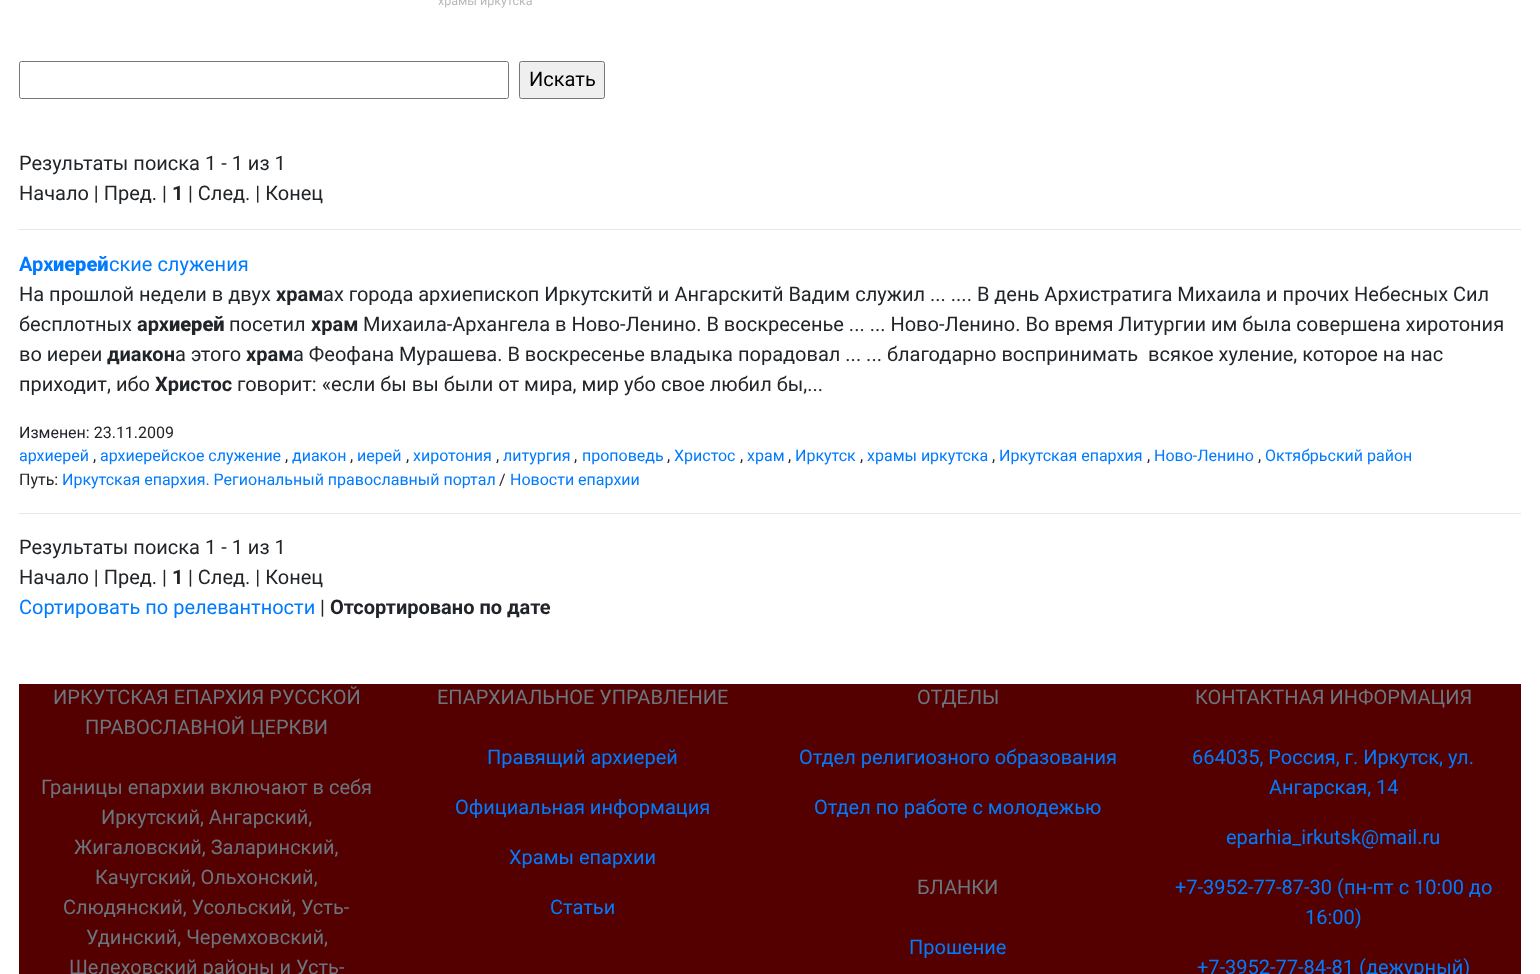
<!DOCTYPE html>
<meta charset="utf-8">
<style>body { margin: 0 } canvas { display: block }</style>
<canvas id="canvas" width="1540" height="974"></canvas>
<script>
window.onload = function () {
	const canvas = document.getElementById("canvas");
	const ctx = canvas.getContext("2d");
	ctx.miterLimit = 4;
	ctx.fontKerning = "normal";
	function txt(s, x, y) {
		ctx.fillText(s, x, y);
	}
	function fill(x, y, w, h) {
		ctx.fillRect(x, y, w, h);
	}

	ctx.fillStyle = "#FFFFFF";
	fill(0, 0, 1540, 974);
	ctx.beginPath();
	ctx.roundRect(19.5, 61.5, 489, 37, 2);
	ctx.strokeStyle = "#767676";
	ctx.stroke();
	ctx.fillStyle = "#EFEFEF";
	ctx.beginPath();
	ctx.roundRect(519.5, 61.5, 85, 37, 2);
	ctx.fill();
	ctx.stroke();
	ctx.fillStyle = "#E6E6E6";
	fill(19, 229, 1502, 1);
	fill(19, 513, 1502, 1);
	ctx.fillStyle = "#550000";
	fill(19, 684, 1502, 290);
	ctx.font = "12.5px Roboto";
	ctx.fillStyle = "#B9B9B9";
	txt("храмы иркутска", 438, 5);
	ctx.font = "20px Roboto";
	ctx.fillStyle = "#000000";
	txt("Искать", 529, 86);
	ctx.fillStyle = "#212529";
	txt("Результаты поиска 1 - 1 из 1", 19, 170);
	txt("Начало | Пред. |", 19, 200);
	ctx.font = "bold 20px Roboto";
	txt("1", 172, 200);
	ctx.font = "20px Roboto";
	txt("| След. | Конец", 188, 200);
	ctx.font = "bold 20px Roboto";
	ctx.fillStyle = "#007BFF";
	txt("Арх", 19, 271);
	ctx.font = "900 20px Roboto";
	txt("иерей", 53, 271);
	ctx.font = "20px Roboto";
	txt("ские служения", 109, 271);
	ctx.fillStyle = "#212529";
	txt("На прошлой недели в двух", 19, 301);
	ctx.font = "bold 20px Roboto";
	txt("храм", 276, 301);
	ctx.font = "20px Roboto";
	txt("ах города архиепископ Иркутскитй и Ангарскитй Вадим служил ... .... В день Архистратига Михаила и прочих Небесных Сил", 323, 301);
	txt("бесплотных", 19, 331);
	ctx.font = "bold 20px Roboto";
	txt("арх", 137, 331);
	ctx.font = "900 20px Roboto";
	txt("иерей", 169, 331);
	ctx.font = "20px Roboto";
	txt("посетил", 229, 331);
	ctx.font = "bold 20px Roboto";
	txt("храм", 311, 331);
	ctx.font = "20px Roboto";
	txt("Михаила-Архангела в Ново-Ленино. В воскресенье ... ... Ново-Ленино. Во время Литургии им была совершена хиротония", 363, 331);
	txt("во иереи", 19, 361);
	ctx.font = "bold 20px Roboto";
	txt("диакон", 107, 361);
	ctx.font = "20px Roboto";
	txt("а этого", 175, 361);
	ctx.font = "bold 20px Roboto";
	txt("храм", 246, 361);
	ctx.font = "20px Roboto";
	txt("а Феофана Мурашева. В воскресенье владыка порадовал ... ... благодарно воспринимать  всякое хуление, которое на нас", 293, 361);
	txt("приходит, ибо", 19, 391);
	ctx.font = "bold 20px Roboto";
	txt("Христос", 155, 391);
	ctx.font = "20px Roboto";
	txt("говорит: «если бы вы были от мира, мир убо свое любил бы,...", 237, 391);
	ctx.font = "16px Roboto";
	txt("Изменен: 23.11.2009", 19, 438);
	ctx.fillStyle = "#007BFF";
	txt("архиерей", 19, 461);
	ctx.fillStyle = "#212529";
	txt(",", 93, 461);
	ctx.fillStyle = "#007BFF";
	txt("архиерейское служение", 100, 461);
	ctx.fillStyle = "#212529";
	txt(",", 285, 461);
	ctx.fillStyle = "#007BFF";
	txt("диакон", 292, 461);
	ctx.fillStyle = "#212529";
	txt(",", 350, 461);
	ctx.fillStyle = "#007BFF";
	txt("иерей", 357, 461);
	ctx.fillStyle = "#212529";
	txt(",", 406, 461);
	ctx.fillStyle = "#007BFF";
	txt("хиротония", 413, 461);
	ctx.fillStyle = "#212529";
	txt(",", 496, 461);
	ctx.fillStyle = "#007BFF";
	txt("литургия", 503, 461);
	ctx.fillStyle = "#212529";
	txt(",", 574, 461);
	ctx.fillStyle = "#007BFF";
	txt("проповедь", 582, 461);
	ctx.fillStyle = "#212529";
	txt(",", 667, 461);
	ctx.fillStyle = "#007BFF";
	txt("Христос", 674, 461);
	ctx.fillStyle = "#212529";
	txt(",", 740, 461);
	ctx.fillStyle = "#007BFF";
	txt("храм", 747, 461);
	ctx.fillStyle = "#212529";
	txt(",", 788, 461);
	ctx.fillStyle = "#007BFF";
	txt("Иркутск", 795, 461);
	ctx.fillStyle = "#212529";
	txt(",", 860, 461);
	ctx.fillStyle = "#007BFF";
	txt("храмы иркутска", 867, 461);
	ctx.fillStyle = "#212529";
	txt(",", 992, 461);
	ctx.fillStyle = "#007BFF";
	txt("Иркутская епархия", 999, 461);
	ctx.fillStyle = "#212529";
	txt(",", 1147, 461);
	ctx.fillStyle = "#007BFF";
	txt("Ново-Ленино", 1154, 461);
	ctx.fillStyle = "#212529";
	txt(",", 1258, 461);
	ctx.fillStyle = "#007BFF";
	txt("Октябрьский район", 1265, 461);
	ctx.fillStyle = "#212529";
	txt("Путь:", 19, 485);
	ctx.fillStyle = "#007BFF";
	txt("Иркутская епархия. Региональный православный портал", 62, 485);
	ctx.fillStyle = "#212529";
	txt("/", 499, 485);
	ctx.fillStyle = "#007BFF";
	txt("Новости епархии", 510, 485);
	ctx.font = "20px Roboto";
	ctx.fillStyle = "#212529";
	txt("Результаты поиска 1 - 1 из 1", 19, 554);
	txt("Начало | Пред. |", 19, 584);
	ctx.font = "bold 20px Roboto";
	txt("1", 172, 584);
	ctx.font = "20px Roboto";
	txt("| След. | Конец", 188, 584);
	ctx.fillStyle = "#007BFF";
	txt("Сортировать по релевантности", 19, 614);
	ctx.fillStyle = "#212529";
	txt("|", 320, 614);
	ctx.font = "bold 20px Roboto";
	txt("Отсортировано по дате", 330, 614);
	ctx.font = "20px Roboto";
	ctx.fillStyle = "#6C757D";
	txt("ИРКУТСКАЯ ЕПАРХИЯ РУССКОЙ", 53, 704);
	txt("ПРАВОСЛАВНОЙ ЦЕРКВИ", 85, 734);
	txt("Границы епархии включают в себя", 41, 794);
	txt("Иркутский, Ангарский,", 101, 824);
	txt("Жигаловский, Заларинский,", 74, 854);
	txt("Качугский, Ольхонский,", 95, 884);
	txt("Слюдянский, Усольский, Усть-", 63, 914);
	txt("Удинский, Черемховский,", 86, 944);
	txt("Шелеховский районы и Усть-", 69, 974);
	txt("ЕПАРХИАЛЬНОЕ УПРАВЛЕНИЕ", 437, 704);
	ctx.fillStyle = "#007BFF";
	txt("Правящий архиерей", 487, 764);
	txt("Официальная информация", 455, 814);
	txt("Храмы епархии", 509, 864);
	txt("Статьи", 550, 914);
	ctx.fillStyle = "#6C757D";
	txt("ОТДЕЛЫ", 917, 704);
	ctx.fillStyle = "#007BFF";
	txt("Отдел религиозного образования", 799, 764);
	txt("Отдел по работе с молодежью", 814, 814);
	ctx.fillStyle = "#6C757D";
	txt("БЛАНКИ", 917, 894);
	ctx.fillStyle = "#007BFF";
	txt("Прошение", 909, 954);
	ctx.fillStyle = "#6C757D";
	txt("КОНТАКТНАЯ ИНФОРМАЦИЯ", 1195, 704);
	ctx.fillStyle = "#007BFF";
	txt("664035, Россия, г. Иркутск, ул.", 1192, 764);
	txt("Ангарская, 14", 1269, 794);
	txt("eparhia_irkutsk@mail.ru", 1226, 844);
	txt("+7-3952-77-87-30 (пн-пт с 10:00 до", 1175, 894);
	txt("16:00)", 1305, 924);
	txt("+7-3952-77-84-81 (дежурный)", 1197, 974);
};
</script>
